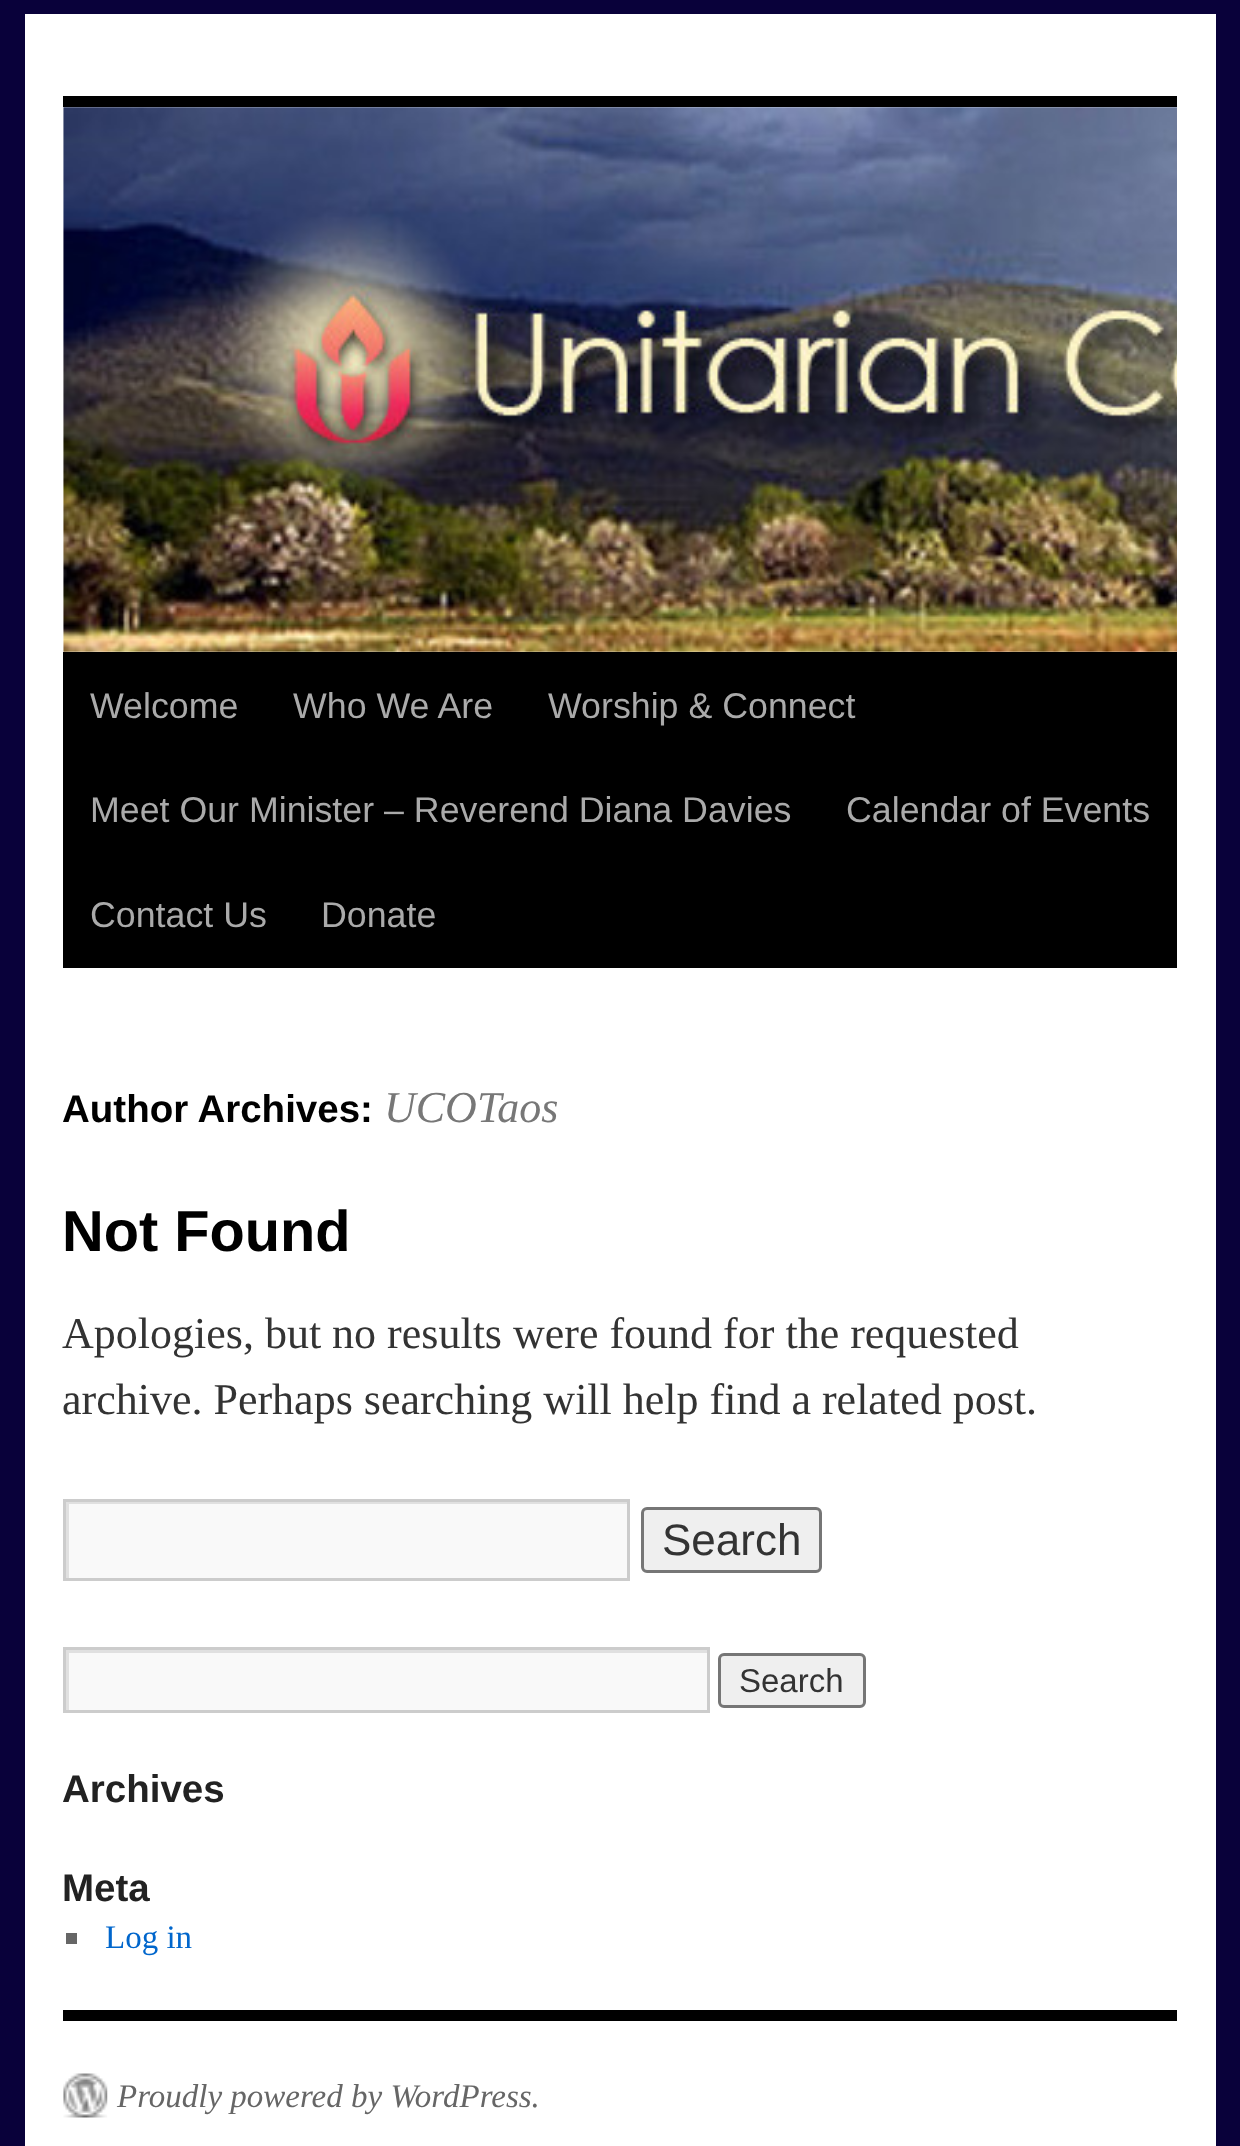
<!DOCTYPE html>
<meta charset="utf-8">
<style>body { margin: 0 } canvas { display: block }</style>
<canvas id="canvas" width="1240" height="2146"></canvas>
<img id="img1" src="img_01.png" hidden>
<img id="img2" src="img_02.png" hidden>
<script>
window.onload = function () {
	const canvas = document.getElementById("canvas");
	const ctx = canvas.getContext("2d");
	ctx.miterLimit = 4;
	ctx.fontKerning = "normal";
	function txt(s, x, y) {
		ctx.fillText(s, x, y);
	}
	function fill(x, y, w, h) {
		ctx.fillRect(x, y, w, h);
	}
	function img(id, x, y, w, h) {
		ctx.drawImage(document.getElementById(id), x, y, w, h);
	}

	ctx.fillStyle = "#09013A";
	fill(0, 0, 1240, 2146);
	ctx.fillStyle = "#FFFFFF";
	fill(25, 14, 1191, 2132);
	ctx.fillStyle = "#000000";
	fill(63, 96, 1114, 11);
	img("img1", 63, 107, 1114, 545);
	fill(63, 652, 1114, 316);
	ctx.fillStyle = "#F9F9F9";
	fill(69, 1504, 558, 74);
	ctx.save();
	ctx.beginPath();
	ctx.rect(66, 1502, 561, 77);
	ctx.clip();
	ctx.fillStyle = "#E0E0E0";
	ctx.beginPath();
	ctx.moveTo(-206, 1229);
	ctx.lineTo(899, 1229);
	ctx.lineTo(899, 1851);
	ctx.lineTo(-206, 1851);
	ctx.closePath();
	ctx.moveTo(69, 1504);
	ctx.lineTo(630, 1504);
	ctx.lineTo(630, 1581);
	ctx.lineTo(69, 1581);
	ctx.closePath();
	ctx.fill("evenodd");
	ctx.restore();
	ctx.strokeStyle = "#CCCCCC";
	ctx.lineWidth = 3;
	ctx.strokeRect(64.5, 1500.5, 564, 79);
	ctx.fillStyle = "#EFEFEF";
	ctx.beginPath();
	ctx.roundRect(642.5, 1508.5, 178, 63, 4.5);
	ctx.fill();
	ctx.strokeStyle = "#767676";
	ctx.stroke();
	ctx.fillStyle = "#F9F9F9";
	fill(69, 1653, 638, 57);
	ctx.save();
	ctx.beginPath();
	ctx.rect(66, 1650, 641, 61);
	ctx.clip();
	ctx.fillStyle = "#E0E0E0";
	ctx.beginPath();
	ctx.moveTo(-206, 1378);
	ctx.lineTo(979, 1378);
	ctx.lineTo(979, 1983);
	ctx.lineTo(-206, 1983);
	ctx.closePath();
	ctx.moveTo(69, 1653);
	ctx.lineTo(710, 1653);
	ctx.lineTo(710, 1713);
	ctx.lineTo(69, 1713);
	ctx.closePath();
	ctx.fill("evenodd");
	ctx.restore();
	ctx.strokeStyle = "#CCCCCC";
	ctx.strokeRect(64.5, 1648.5, 644, 63);
	ctx.fillStyle = "#EFEFEF";
	ctx.beginPath();
	ctx.roundRect(719.5, 1654.5, 145, 52, 4.5);
	ctx.fill();
	ctx.strokeStyle = "#767676";
	ctx.stroke();
	ctx.fillStyle = "#666666";
	fill(66, 1933, 11, 11);
	ctx.fillStyle = "#000000";
	fill(63, 2010, 1114, 11);
	img("img2", 63, 2073, 45, 45);
	ctx.font = "35.75px Liberation Sans";
	ctx.fillStyle = "#AAAAAA";
	txt("Welcome", 90, 718);
	txt("Who We Are", 293, 718);
	txt("Worship & Connect", 548, 718);
	txt("Meet Our Minister – Reverend Diana Davies", 90, 822);
	txt("Calendar of Events", 846, 822);
	txt("Contact Us", 90, 927);
	txt("Donate", 321, 927);
	ctx.font = "bold 38.5px Liberation Sans";
	ctx.fillStyle = "#000000";
	txt("Author Archives:", 62, 1122);
	ctx.font = "italic 44px Liberation Serif";
	ctx.fillStyle = "#777777";
	txt("UCOTaos", 384, 1122);
	ctx.font = "bold 57.75px Liberation Sans";
	ctx.fillStyle = "#000000";
	txt("Not Found", 62, 1251);
	ctx.font = "44px Liberation Serif";
	ctx.fillStyle = "#333333";
	txt("Apologies, but no results were found for the requested", 62, 1348);
	txt("archive. Perhaps searching will help find a related post.", 62, 1414);
	ctx.font = "44px Liberation Sans";
	txt("Search", 662, 1555);
	ctx.font = "33px Liberation Sans";
	txt("Search", 739, 1692);
	ctx.font = "bold 38.5px Liberation Sans";
	ctx.fillStyle = "#222222";
	txt("Archives", 62, 1802);
	txt("Meta", 62, 1901);
	ctx.font = "33px Liberation Serif";
	ctx.fillStyle = "#0066CC";
	txt("Log in", 105, 1948);
	ctx.font = "italic 33px Liberation Serif";
	ctx.fillStyle = "#666666";
	txt("Proudly powered by WordPress.", 117, 2107);
};
</script>
